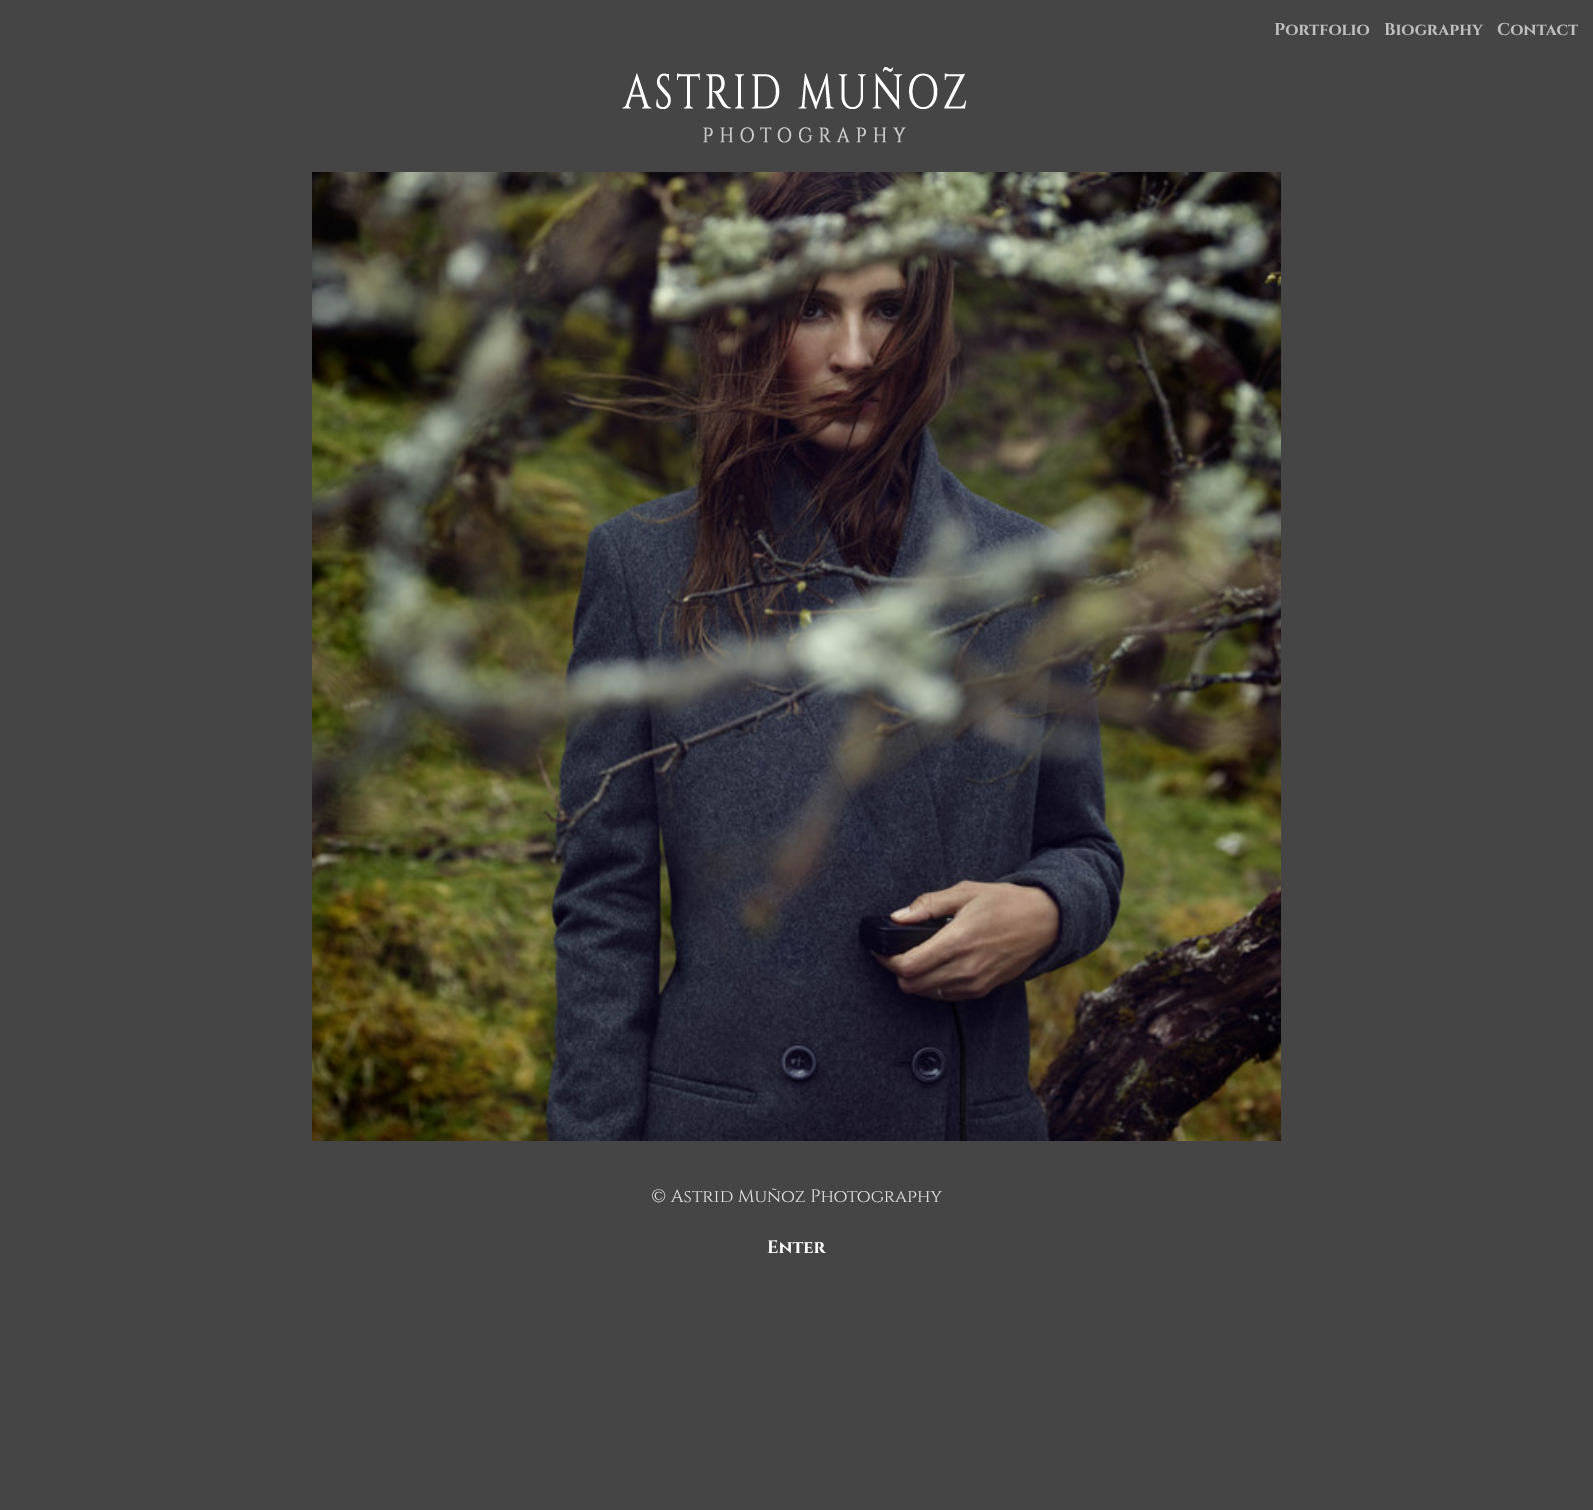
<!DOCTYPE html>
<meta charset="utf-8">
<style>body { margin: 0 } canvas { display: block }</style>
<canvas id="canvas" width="1593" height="1510"></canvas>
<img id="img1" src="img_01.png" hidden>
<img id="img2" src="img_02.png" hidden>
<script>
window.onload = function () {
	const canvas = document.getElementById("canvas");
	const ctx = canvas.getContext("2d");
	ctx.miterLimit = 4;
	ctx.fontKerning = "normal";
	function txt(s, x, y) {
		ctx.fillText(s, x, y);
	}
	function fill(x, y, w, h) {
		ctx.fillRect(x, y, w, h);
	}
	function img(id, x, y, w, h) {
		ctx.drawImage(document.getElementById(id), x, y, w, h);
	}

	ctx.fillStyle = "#454545";
	fill(0, 0, 1593, 1510);
	img("img1", 622, 67, 345, 76);
	img("img2", 312, 172, 969, 969);
	ctx.font = "bold 17px Cinzel";
	ctx.fillStyle = "#BFBFBF";
	txt("Portfolio", 1274, 35);
	txt("Biography", 1384, 35);
	txt("Contact", 1497, 35);
	ctx.font = "18px Cinzel";
	ctx.fillStyle = "#E4E3E3";
	txt("© Astrid Muñoz Photography", 651, 1202);
	ctx.font = "bold 18px Cinzel";
	ctx.fillStyle = "#FFFFFF";
	txt("Enter", 767, 1253);
};
</script>
